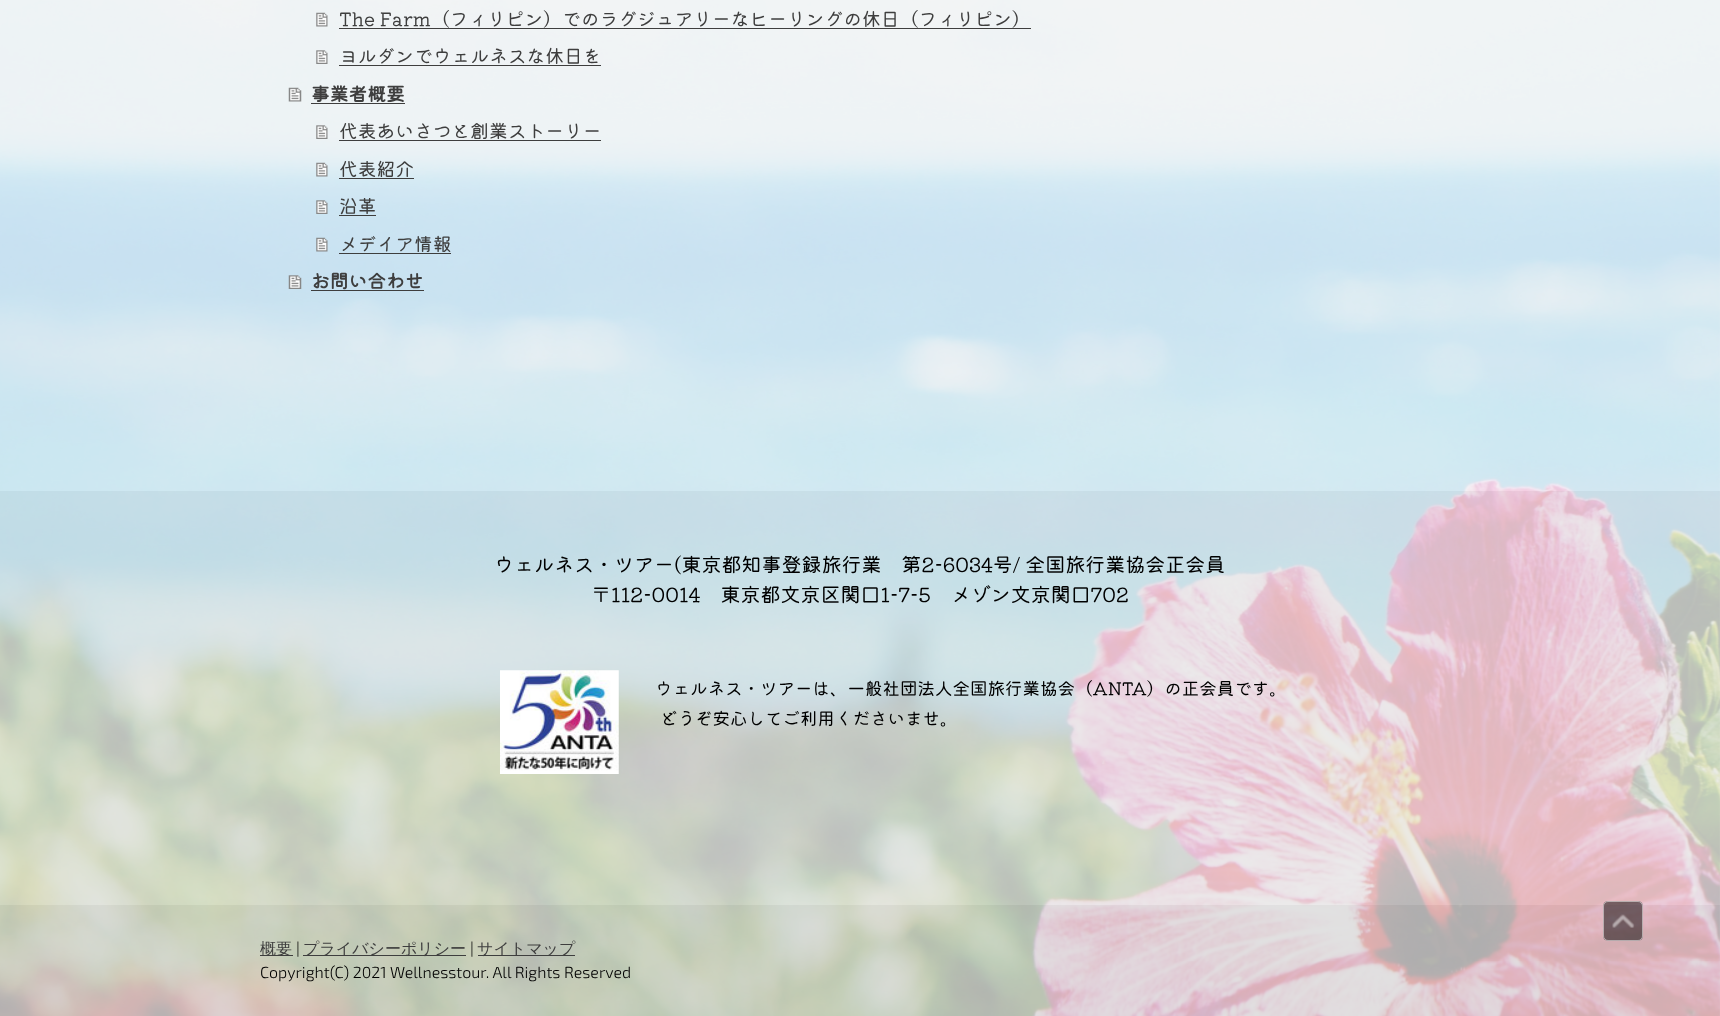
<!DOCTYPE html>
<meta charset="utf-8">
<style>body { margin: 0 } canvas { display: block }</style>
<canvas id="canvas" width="1720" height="1016"></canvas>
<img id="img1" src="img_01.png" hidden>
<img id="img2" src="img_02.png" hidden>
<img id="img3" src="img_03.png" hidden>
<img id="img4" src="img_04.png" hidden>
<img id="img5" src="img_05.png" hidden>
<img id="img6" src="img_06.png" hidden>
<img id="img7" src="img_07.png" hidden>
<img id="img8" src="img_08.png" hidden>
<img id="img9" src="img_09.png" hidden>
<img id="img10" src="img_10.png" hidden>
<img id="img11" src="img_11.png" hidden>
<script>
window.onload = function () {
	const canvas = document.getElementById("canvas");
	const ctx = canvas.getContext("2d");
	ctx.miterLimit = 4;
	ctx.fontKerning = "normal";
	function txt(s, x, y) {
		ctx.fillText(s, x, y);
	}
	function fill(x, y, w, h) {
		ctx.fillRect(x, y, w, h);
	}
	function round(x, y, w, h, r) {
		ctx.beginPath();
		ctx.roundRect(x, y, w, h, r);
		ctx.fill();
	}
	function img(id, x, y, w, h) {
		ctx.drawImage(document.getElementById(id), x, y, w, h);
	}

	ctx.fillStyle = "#FFFFFF";
	fill(0, 0, 1720, 1016);
	img("img1", 0, 0, 1720, 1016);
	ctx.fillStyle = "rgba(243, 243, 243, 0.8)";
	fill(0, 0, 1720, 491);
	img("img2", 316, 12, 12, 15);
	ctx.fillStyle = "#3E3E3E";
	fill(339, 28, 692, 1);
	img("img3", 316, 50, 12, 14);
	fill(339, 65, 262, 1);
	img("img4", 288, 87, 14, 15);
	fill(311, 103, 94, 1);
	img("img5", 316, 125, 12, 14);
	fill(339, 140, 262, 1);
	img("img6", 316, 162, 12, 15);
	fill(339, 178, 75, 1);
	img("img7", 316, 200, 12, 14);
	fill(339, 215, 37, 1);
	img("img8", 316, 237, 12, 15);
	fill(339, 253, 112, 1);
	img("img9", 288, 275, 14, 14);
	fill(311, 290, 113, 1);
	ctx.fillStyle = "rgba(230, 230, 230, 0.8)";
	fill(0, 491, 1720, 414);
	img("img10", 500, 670, 119, 104);
	ctx.fillStyle = "rgba(218, 218, 218, 0.8)";
	fill(0, 905, 1720, 111);
	ctx.fillStyle = "#3E3E3E";
	fill(260, 955, 33, 1);
	fill(303, 955, 163, 1);
	fill(478, 955, 97, 1);
	ctx.fillStyle = "rgba(0, 0, 0, 0.5)";
	round(1603, 901, 40, 40, 5);
	ctx.beginPath();
	ctx.roundRect(1603.5, 901.5, 39, 39, 4.5);
	ctx.strokeStyle = "rgba(255, 255, 255, 0.5)";
	ctx.stroke();
	img("img11", 1612, 914, 23, 14);
	ctx.font = "18.75px Kiwi Maru";
	ctx.fillStyle = "#3E3E3E";
	txt("The Farm（フィリピン）でのラグジュアリーなヒーリングの休日（フィリピン）", 339, 26);
	txt("ヨルダンでウェルネスな休日を", 339, 63);
	ctx.font = "bold 18.75px Kiwi Maru";
	txt("事業者概要", 311, 101);
	ctx.font = "18.75px Kiwi Maru";
	txt("代表あいさつと創業ストーリー", 339, 138);
	txt("代表紹介", 339, 176);
	txt("沿革", 339, 213);
	txt("メデイア情報", 339, 251);
	ctx.font = "bold 18.75px Kiwi Maru";
	txt("お問い合わせ", 311, 288);
	ctx.font = "20px Kiwi Maru";
	ctx.fillStyle = "#000000";
	txt("ウェルネス・ツアー(東京都知事登録旅行業　第2-6034号/ 全国旅行業協会正会員", 494, 572);
	txt("〒112-0014　東京都文京区関口1-7-5　メゾン文京関口702", 591, 602);
	ctx.font = "17.5px Kiwi Maru";
	txt("ウェルネス・ツアーは、一般社団法人全国旅行業協会（ANTA）の正会員です。", 655, 695);
	txt("どうぞ安心してご利用くださいませ。", 660, 725);
	ctx.font = "500 16px WenQuanYi Zen Hei";
	ctx.fillStyle = "#3E3E3E";
	txt("概要", 260, 954);
	ctx.font = "300 16px 'Exo 2'";
	ctx.fillStyle = "#000000";
	txt("|", 296, 954);
	ctx.font = "500 16px WenQuanYi Zen Hei";
	ctx.fillStyle = "#3E3E3E";
	txt("プライバシーポリシー", 303, 954);
	ctx.font = "300 16px 'Exo 2'";
	ctx.fillStyle = "#000000";
	txt("|", 470, 954);
	ctx.font = "500 16px WenQuanYi Zen Hei";
	ctx.fillStyle = "#3E3E3E";
	txt("サイトマップ", 477, 954);
	ctx.font = "300 16px 'Exo 2'";
	ctx.fillStyle = "#000000";
	txt("Copyright(C) 2021 Wellnesstour. All Rights Reserved", 260, 978);
};
</script>
